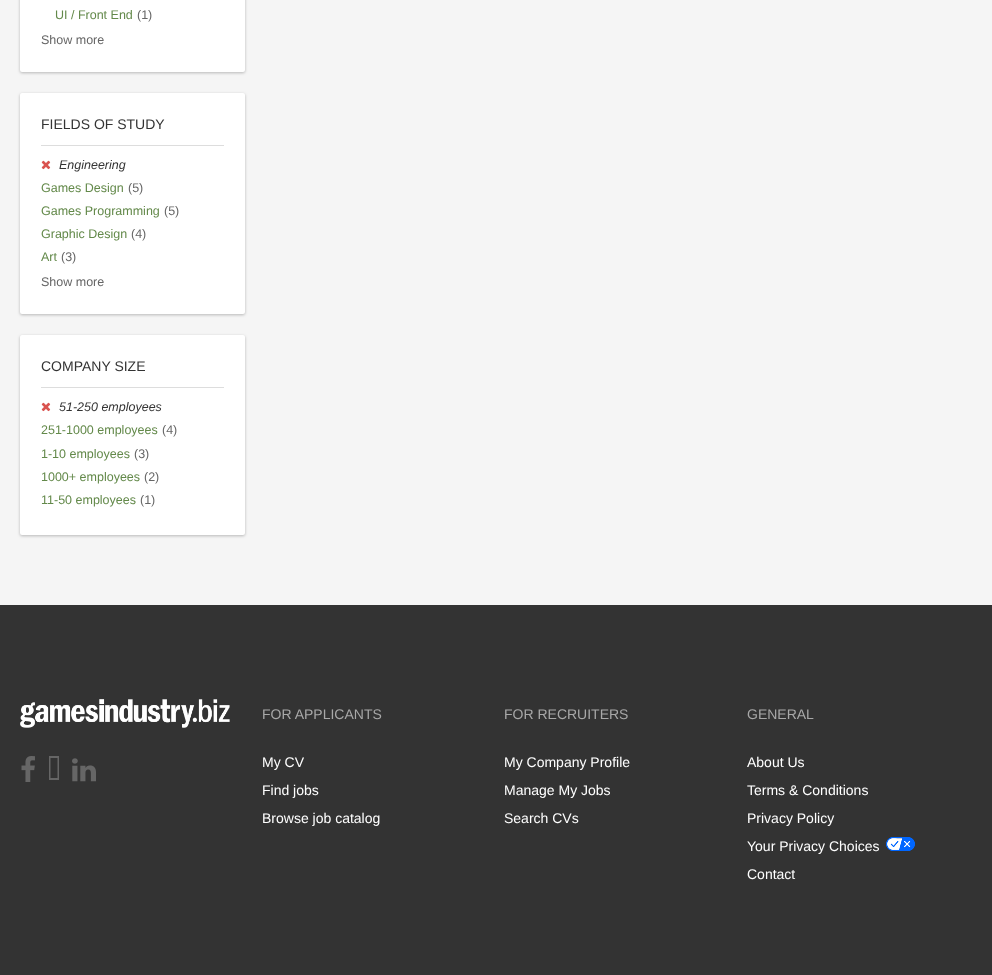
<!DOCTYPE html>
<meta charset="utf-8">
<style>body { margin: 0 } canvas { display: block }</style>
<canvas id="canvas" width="992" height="975"></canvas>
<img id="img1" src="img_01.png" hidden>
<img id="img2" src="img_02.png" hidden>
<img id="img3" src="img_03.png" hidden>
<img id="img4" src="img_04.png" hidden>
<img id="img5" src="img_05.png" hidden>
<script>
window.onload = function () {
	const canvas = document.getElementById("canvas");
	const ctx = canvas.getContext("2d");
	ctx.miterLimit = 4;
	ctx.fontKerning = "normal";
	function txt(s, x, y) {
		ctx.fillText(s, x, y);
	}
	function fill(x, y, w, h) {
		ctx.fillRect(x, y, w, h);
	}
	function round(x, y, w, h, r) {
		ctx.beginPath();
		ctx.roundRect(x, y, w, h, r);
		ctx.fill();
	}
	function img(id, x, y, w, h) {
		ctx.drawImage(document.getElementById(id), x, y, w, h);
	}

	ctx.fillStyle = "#F5F5F5";
	fill(0, 0, 992, 975);
	ctx.fillStyle = "rgba(0, 0, 0, 0.25)";
	ctx.filter = "blur(1.5px)";
	ctx.beginPath();
	ctx.roundRect(20, -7, 225, 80, 2);
	ctx.fill();
	ctx.filter = "none";
	ctx.fillStyle = "#FFFFFF";
	round(20, -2, 225, 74, 2);
	ctx.fillStyle = "rgba(0, 0, 0, 0.25)";
	ctx.filter = "blur(1.5px)";
	ctx.beginPath();
	ctx.roundRect(20, 94, 225, 221, 2);
	ctx.fill();
	ctx.filter = "none";
	ctx.fillStyle = "#FFFFFF";
	round(20, 93, 225, 221, 2);
	ctx.fillStyle = "#DDDDDD";
	fill(41, 145, 183, 1);
	img("img1", 41, 160, 10, 10);
	ctx.fillStyle = "rgba(0, 0, 0, 0.25)";
	ctx.filter = "blur(1.5px)";
	ctx.beginPath();
	ctx.roundRect(20, 336, 225, 200, 2);
	ctx.fill();
	ctx.filter = "none";
	ctx.fillStyle = "#FFFFFF";
	round(20, 335, 225, 200, 2);
	ctx.fillStyle = "#DDDDDD";
	fill(41, 387, 183, 1);
	img("img1", 41, 402, 10, 10);
	ctx.fillStyle = "#333333";
	fill(0, 605, 992, 370);
	img("img2", 20, 699, 210, 29);
	img("img3", 21, 756, 14, 26);
	ctx.fillStyle = "#666666";
	ctx.beginPath();
	ctx.moveTo(50.5, 778);
	ctx.lineTo(50.5, 758);
	ctx.lineTo(57.5, 758);
	ctx.lineTo(57.5, 778);
	ctx.closePath();
	ctx.moveTo(49, 780);
	ctx.lineTo(59, 780);
	ctx.lineTo(59, 756);
	ctx.lineTo(49, 756);
	ctx.closePath();
	ctx.fill();
	img("img4", 72, 758, 24, 24);
	img("img5", 886, 837, 29, 14);
	ctx.font = "12.5px Liberation Sans";
	ctx.fillStyle = "#63894A";
	txt("UI / Front End", 55, 19);
	ctx.fillStyle = "#666666";
	txt("(1)", 137, 19);
	txt("Show more", 41, 44);
	ctx.font = "14px Liberation Sans";
	ctx.fillStyle = "#333333";
	txt("FIELDS OF STUDY", 41, 129);
	ctx.font = "italic 12.5px Liberation Sans";
	txt("Engineering", 59, 169);
	ctx.font = "12.5px Liberation Sans";
	ctx.fillStyle = "#63894A";
	txt("Games Design", 41, 192);
	ctx.fillStyle = "#666666";
	txt("(5)", 128, 192);
	ctx.fillStyle = "#63894A";
	txt("Games Programming", 41, 215);
	ctx.fillStyle = "#666666";
	txt("(5)", 164, 215);
	ctx.fillStyle = "#63894A";
	txt("Graphic Design", 41, 238);
	ctx.fillStyle = "#666666";
	txt("(4)", 131, 238);
	ctx.fillStyle = "#63894A";
	txt("Art", 41, 261);
	ctx.fillStyle = "#666666";
	txt("(3)", 61, 261);
	txt("Show more", 41, 286);
	ctx.font = "14px Liberation Sans";
	ctx.fillStyle = "#333333";
	txt("COMPANY SIZE", 41, 371);
	ctx.font = "italic 12.5px Liberation Sans";
	txt("51-250 employees", 59, 411);
	ctx.font = "12.5px Liberation Sans";
	ctx.fillStyle = "#63894A";
	txt("251-1000 employees", 41, 434);
	ctx.fillStyle = "#666666";
	txt("(4)", 162, 434);
	ctx.fillStyle = "#63894A";
	txt("1-10 employees", 41, 458);
	ctx.fillStyle = "#666666";
	txt("(3)", 134, 458);
	ctx.fillStyle = "#63894A";
	txt("1000+ employees", 41, 481);
	ctx.fillStyle = "#666666";
	txt("(2)", 144, 481);
	ctx.fillStyle = "#63894A";
	txt("11-50 employees", 41, 504);
	ctx.fillStyle = "#666666";
	txt("(1)", 140, 504);
	ctx.font = "14px Liberation Sans";
	ctx.fillStyle = "#A8A8A8";
	txt("FOR APPLICANTS", 262, 719);
	ctx.fillStyle = "#FFFFFF";
	txt("My CV", 262, 767);
	txt("Find jobs", 262, 795);
	txt("Browse job catalog", 262, 823);
	ctx.fillStyle = "#A8A8A8";
	txt("FOR RECRUITERS", 504, 719);
	ctx.fillStyle = "#FFFFFF";
	txt("My Company Profile", 504, 767);
	txt("Manage My Jobs", 504, 795);
	txt("Search CVs", 504, 823);
	ctx.fillStyle = "#A8A8A8";
	txt("GENERAL", 747, 719);
	ctx.fillStyle = "#FFFFFF";
	txt("About Us", 747, 767);
	txt("Terms & Conditions", 747, 795);
	txt("Privacy Policy", 747, 823);
	txt("Your Privacy Choices", 747, 851);
	txt("Contact", 747, 879);
};
</script>
